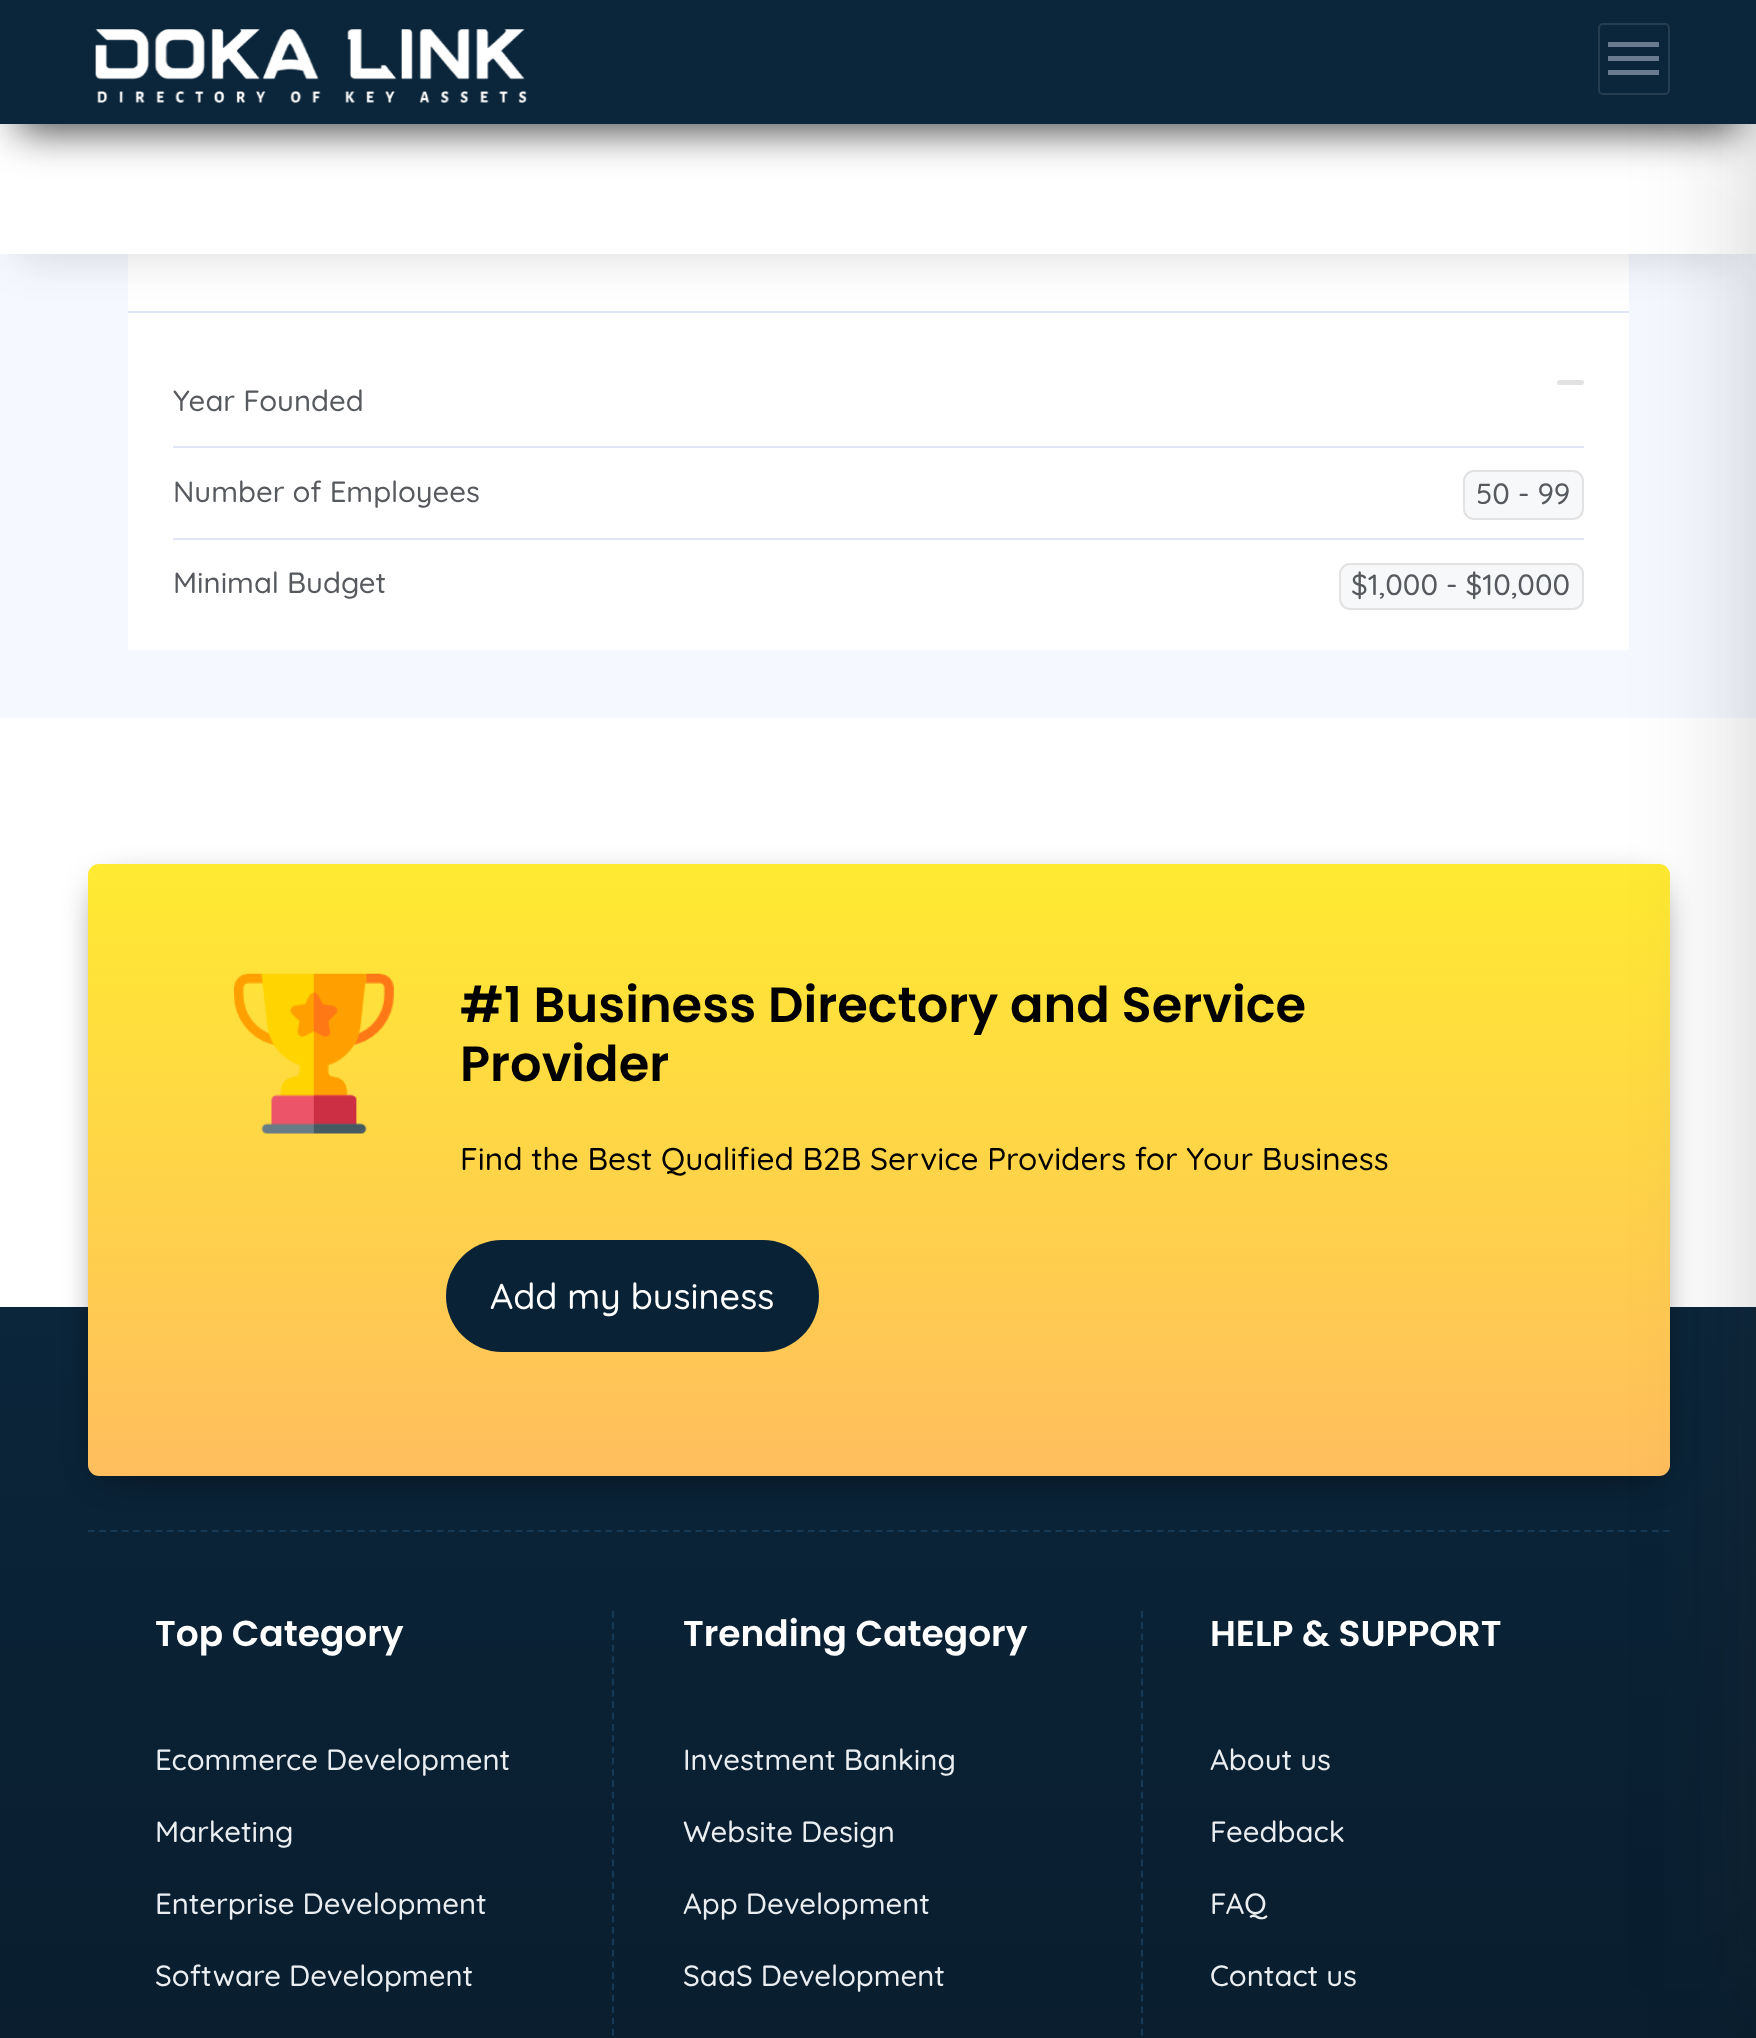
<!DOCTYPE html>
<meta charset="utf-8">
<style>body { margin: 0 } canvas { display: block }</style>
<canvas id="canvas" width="1756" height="2038"></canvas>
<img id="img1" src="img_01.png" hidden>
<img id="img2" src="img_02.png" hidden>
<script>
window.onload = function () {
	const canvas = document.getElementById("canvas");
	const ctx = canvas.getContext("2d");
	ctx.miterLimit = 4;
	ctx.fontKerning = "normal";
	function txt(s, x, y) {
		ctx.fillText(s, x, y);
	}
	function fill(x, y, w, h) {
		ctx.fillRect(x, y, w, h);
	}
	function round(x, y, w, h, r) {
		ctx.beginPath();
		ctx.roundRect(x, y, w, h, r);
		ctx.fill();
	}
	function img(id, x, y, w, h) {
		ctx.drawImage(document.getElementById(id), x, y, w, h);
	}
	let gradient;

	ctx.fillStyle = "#FFFFFF";
	fill(0, 0, 1756, 2038);
	ctx.fillStyle = "#F5F8FF";
	fill(0, 254, 1756, 464);
	ctx.fillStyle = "#FFFFFF";
	fill(128, 254, 1501, 396);
	ctx.fillStyle = "#E0E6F5";
	fill(128, 311, 1501, 2);
	ctx.fillStyle = "rgba(42, 42, 42, 0.14)";
	ctx.filter = "blur(20px)";
	ctx.beginPath();
	ctx.rect(18, -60, 1721, 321);
	ctx.fill();
	ctx.filter = "none";
	ctx.fillStyle = "#FFFFFF";
	fill(0, 124, 1756, 130);
	ctx.fillStyle = "rgba(42, 42, 42, 0.86)";
	ctx.filter = "blur(20px)";
	ctx.beginPath();
	ctx.rect(18, 43, 1721, 88);
	ctx.fill();
	ctx.filter = "none";
	ctx.fillStyle = "#E0E6F5";
	fill(173, 446, 1411, 2);
	ctx.fillStyle = "#E2E2E2";
	round(1557, 380, 27, 5, 2.5);
	ctx.fillStyle = "#E0E6F5";
	fill(173, 538, 1411, 2);
	ctx.fillStyle = "#F7F8FA";
	ctx.beginPath();
	ctx.roundRect(1464, 471, 119, 48, 10);
	ctx.fill();
	ctx.strokeStyle = "#E2E2E2";
	ctx.lineWidth = 2;
	ctx.stroke();
	ctx.beginPath();
	ctx.roundRect(1340, 564, 243, 45, 10);
	ctx.fill();
	ctx.stroke();
	gradient = ctx.createLinearGradient(879, 1307, 879, 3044);
	gradient.addColorStop(0, "#0B253A");
	gradient.addColorStop(0.7, "#081927");
	ctx.fillStyle = gradient;
	fill(0, 1307, 1756, 731);
	ctx.fillStyle = "rgba(0, 0, 0, 0.86)";
	ctx.filter = "blur(19px)";
	ctx.beginPath();
	ctx.rect(106, 891, 1546, 576);
	ctx.fill();
	ctx.filter = "none";
	gradient = ctx.createLinearGradient(879, 864, 879, 1476);
	gradient.addColorStop(0, "#FFEA31");
	gradient.addColorStop(1, "#FFBE5E");
	ctx.fillStyle = gradient;
	round(88, 864, 1582, 612, 11);
	ctx.beginPath();
	ctx.moveTo(88, 1531);
	ctx.lineTo(1669.5, 1531);
	ctx.strokeStyle = "#163A56";
	ctx.lineWidth = 2.2;
	ctx.setLineDash([6.75, 4.5]);
	ctx.stroke();
	ctx.fillStyle = "rgba(42, 42, 42, 0.48)";
	ctx.filter = "blur(82px)";
	ctx.beginPath();
	ctx.rect(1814, 50, 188, 1939);
	ctx.fill();
	ctx.filter = "none";
	ctx.fillStyle = "#0B253A";
	fill(0, 0, 1756, 124);
	img("img1", 95, 29, 432, 74);
	ctx.beginPath();
	ctx.roundRect(1599, 24, 70, 70, 4);
	ctx.strokeStyle = "#263D50";
	ctx.lineWidth = 2;
	ctx.setLineDash([]);
	ctx.stroke();
	ctx.fillStyle = "#697C8F";
	ctx.beginPath();
	ctx.moveTo(1608, 42);
	ctx.lineTo(1659, 42);
	ctx.lineTo(1659, 47);
	ctx.lineTo(1608, 47);
	ctx.closePath();
	ctx.moveTo(1608, 61);
	ctx.lineTo(1608, 56);
	ctx.lineTo(1659, 56);
	ctx.lineTo(1659, 61);
	ctx.closePath();
	ctx.moveTo(1608, 75);
	ctx.lineTo(1608, 70);
	ctx.lineTo(1659, 70);
	ctx.lineTo(1659, 75);
	ctx.closePath();
	ctx.fill();
	img("img2", 234, 973, 160, 161);
	ctx.fillStyle = "#0A2236";
	round(446, 1240, 373, 112, 56);
	ctx.beginPath();
	ctx.moveTo(613, 1611);
	ctx.lineTo(613, 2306);
	ctx.strokeStyle = "#163A56";
	ctx.lineWidth = 2.2;
	ctx.setLineDash([6.75, 4.54]);
	ctx.stroke();
	ctx.beginPath();
	ctx.moveTo(1142, 1611);
	ctx.lineTo(1142, 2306);
	ctx.stroke();
	ctx.font = "500 29.25px Quicksand";
	ctx.fillStyle = "#56595D";
	txt("Year Founded", 173, 411);
	txt("Number of Employees", 173, 502);
	txt("50 - 99", 1476, 504);
	txt("Minimal Budget", 173, 593);
	txt("$1,000 - $10,000", 1351, 595);
	ctx.font = "600 49.5px Poppins";
	ctx.fillStyle = "#000000";
	txt("#1 Business Directory and Service", 460, 1022);
	txt("Provider", 460, 1081);
	ctx.font = "500 31.5px Quicksand";
	txt("Find the Best Qualified B2B Service Providers for Your Business", 460, 1170);
	ctx.font = "500 36px Quicksand";
	ctx.fillStyle = "#FFFFFF";
	txt("Add my business", 490, 1309);
	ctx.font = "600 36px Poppins";
	txt("Top Category", 155, 1646);
	ctx.font = "500 29.25px Quicksand";
	ctx.fillStyle = "#EBEEF1";
	txt("Ecommerce Development", 155, 1770);
	txt("Marketing", 155, 1842);
	txt("Enterprise Development", 155, 1914);
	txt("Software Development", 155, 1986);
	ctx.font = "600 36px Poppins";
	ctx.fillStyle = "#FFFFFF";
	txt("Trending Category", 683, 1646);
	ctx.font = "500 29.25px Quicksand";
	ctx.fillStyle = "#EBEEF1";
	txt("Investment Banking", 683, 1770);
	txt("Website Design", 683, 1842);
	txt("App Development", 683, 1914);
	txt("SaaS Development", 683, 1986);
	ctx.font = "600 36px Poppins";
	ctx.fillStyle = "#FFFFFF";
	txt("HELP & SUPPORT", 1210, 1646);
	ctx.font = "500 29.25px Quicksand";
	ctx.fillStyle = "#EBEEF1";
	txt("About us", 1210, 1770);
	txt("Feedback", 1210, 1842);
	txt("FAQ", 1210, 1914);
	txt("Contact us", 1210, 1986);
};
</script>
